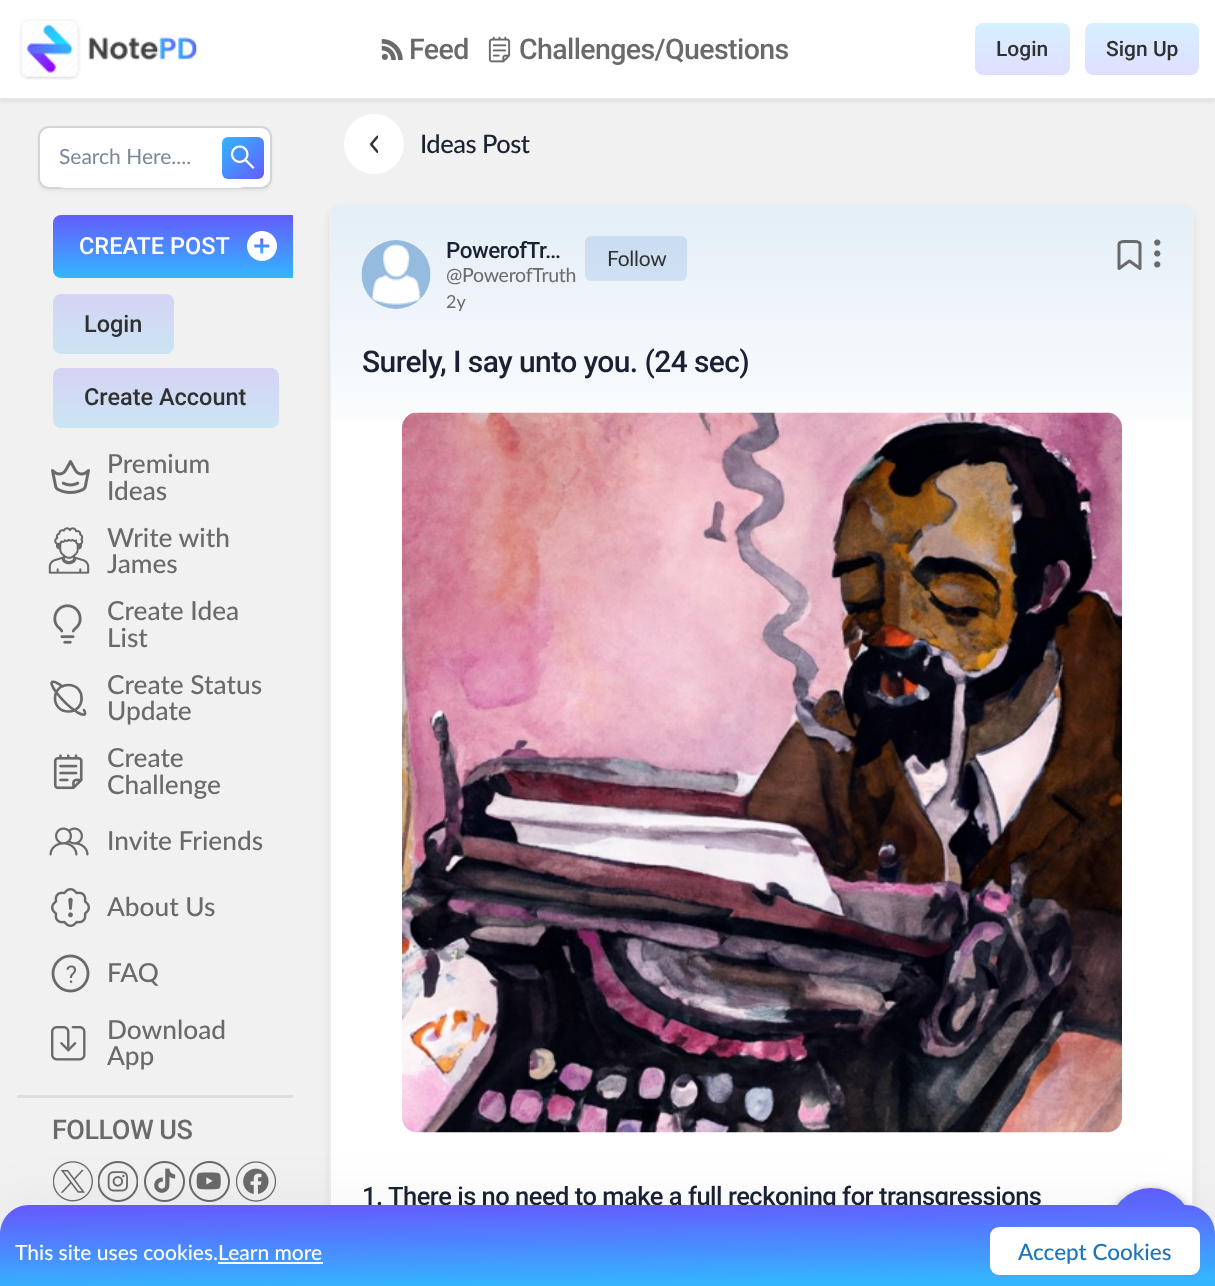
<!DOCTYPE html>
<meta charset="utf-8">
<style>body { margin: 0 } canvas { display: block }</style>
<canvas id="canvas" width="1215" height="1286"></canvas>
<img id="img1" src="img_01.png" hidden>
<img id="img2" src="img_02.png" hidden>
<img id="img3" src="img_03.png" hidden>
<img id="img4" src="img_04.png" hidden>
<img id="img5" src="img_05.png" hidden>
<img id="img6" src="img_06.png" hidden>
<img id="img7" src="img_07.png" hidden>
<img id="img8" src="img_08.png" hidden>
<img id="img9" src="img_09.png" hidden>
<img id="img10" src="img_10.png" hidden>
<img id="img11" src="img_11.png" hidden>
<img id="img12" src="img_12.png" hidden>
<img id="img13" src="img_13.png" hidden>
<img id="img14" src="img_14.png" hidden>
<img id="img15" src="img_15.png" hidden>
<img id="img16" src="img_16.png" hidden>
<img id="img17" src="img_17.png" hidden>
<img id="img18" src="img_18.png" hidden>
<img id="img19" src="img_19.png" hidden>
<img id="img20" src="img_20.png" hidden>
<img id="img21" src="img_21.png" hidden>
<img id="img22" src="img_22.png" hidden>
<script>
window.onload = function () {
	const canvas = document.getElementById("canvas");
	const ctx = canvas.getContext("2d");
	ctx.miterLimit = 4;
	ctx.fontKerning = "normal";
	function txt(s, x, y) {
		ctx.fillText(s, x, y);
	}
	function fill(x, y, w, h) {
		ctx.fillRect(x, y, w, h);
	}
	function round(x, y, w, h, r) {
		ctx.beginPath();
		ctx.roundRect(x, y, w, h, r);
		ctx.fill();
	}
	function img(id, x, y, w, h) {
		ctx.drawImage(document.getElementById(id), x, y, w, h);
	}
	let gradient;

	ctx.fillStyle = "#F1F1F1";
	fill(0, 0, 1215, 1286);
	ctx.fillStyle = "rgba(0, 0, 0, 0.1)";
	ctx.filter = "blur(2px)";
	ctx.beginPath();
	ctx.rect(0, 2, 1215, 99);
	ctx.fill();
	ctx.filter = "none";
	ctx.fillStyle = "#FFFFFF";
	fill(0, 0, 1215, 98);
	ctx.fillStyle = "#E5E7EB";
	fill(0, 98, 1215, 2);
	img("img1", 19, 19, 178, 61);
	img("img2", 381, 39, 22, 21);
	img("img3", 488, 36, 23, 27);
	gradient = ctx.createLinearGradient(1022, 22, 1022, 75);
	gradient.addColorStop(0, "#D6F0FF");
	gradient.addColorStop(1, "#E0DEFF");
	ctx.fillStyle = gradient;
	round(975, 23, 95, 52, 8);
	gradient = ctx.createLinearGradient(1142, 22, 1142, 75);
	gradient.addColorStop(0, "#D6F0FF");
	gradient.addColorStop(1, "#E0DEFF");
	ctx.fillStyle = gradient;
	round(1085, 23, 114, 52, 8);
	ctx.fillStyle = "rgba(0, 0, 0, 0.05)";
	ctx.filter = "blur(1.5px)";
	ctx.beginPath();
	ctx.roundRect(38, 128, 234, 63, 11);
	ctx.fill();
	ctx.filter = "none";
	ctx.fillStyle = "#FFFFFF";
	ctx.beginPath();
	ctx.roundRect(39, 127, 232, 61, 10);
	ctx.fill();
	ctx.strokeStyle = "#D1D5DB";
	ctx.lineWidth = 2;
	ctx.stroke();
	round(60, 128, 183, 60, 3);
	gradient = ctx.createLinearGradient(222, 137, 264, 179);
	gradient.addColorStop(0, "#33B6FF");
	gradient.addColorStop(1, "#645CFE");
	ctx.fillStyle = gradient;
	round(222, 137, 42, 42, 6);
	img("img4", 230, 145, 25, 24);
	gradient = ctx.createLinearGradient(179, 278, 179, 215);
	gradient.addColorStop(0, "#33B6FF");
	gradient.addColorStop(1, "#645CFE");
	ctx.fillStyle = gradient;
	ctx.beginPath();
	ctx.roundRect(53, 215, 240, 63, [8, 0, 0, 8]);
	ctx.fill();
	img("img5", 247, 231, 30, 30);
	gradient = ctx.createLinearGradient(113, 354, 113, 294);
	gradient.addColorStop(0, "#CBE5F4");
	gradient.addColorStop(1, "#D5D3F4");
	ctx.fillStyle = gradient;
	round(53, 294, 121, 60, 8);
	gradient = ctx.createLinearGradient(166, 428, 166, 368);
	gradient.addColorStop(0, "#CBE5F4");
	gradient.addColorStop(1, "#D5D3F4");
	ctx.fillStyle = gradient;
	round(53, 368, 226, 60, 8);
	img("img6", 51, 460, 39, 34);
	img("img7", 48, 527, 42, 47);
	img("img8", 53, 604, 29, 40);
	ctx.beginPath();
	ctx.moveTo(68.5, 711.5);
	ctx.bezierCurveTo(86, 711.5, 86, 685, 68.5, 685);
	ctx.bezierCurveTo(50.5, 685, 50.5, 711.5, 68.5, 711.5);
	ctx.closePath();
	ctx.moveTo(62.5, 686.5);
	ctx.bezierCurveTo(53, 679.5, 47, 679.5, 56, 692);
	ctx.bezierCurveTo(62, 700, 69, 707, 77.5, 712.5);
	ctx.bezierCurveTo(82, 715, 87.5, 717, 84, 710);
	ctx.strokeStyle = "#696A6B";
	ctx.lineWidth = 2.6;
	ctx.lineCap = "round";
	ctx.lineJoin = "round";
	ctx.stroke();
	img("img9", 53, 754, 30, 36);
	img("img10", 49, 827, 40, 29);
	img("img11", 51, 888, 39, 39);
	img("img12", 51, 954, 39, 39);
	img("img13", 51, 1026, 35, 35);
	ctx.fillStyle = "#DCDEE1";
	fill(17, 1095, 276, 3);
	img("img14", 53, 1161, 40, 41);
	img("img15", 98, 1161, 40, 41);
	img("img16", 144, 1161, 41, 41);
	img("img17", 189, 1161, 41, 41);
	img("img18", 236, 1161, 40, 41);
	ctx.fillStyle = "#FFFFFF";
	ctx.beginPath();
	ctx.arc(374, 144, 30, 0, Math.PI * 2);
	ctx.fill();
	img("img19", 369, 135, 9, 18);
	ctx.fillStyle = "rgba(0, 0, 0, 0.1)";
	ctx.filter = "blur(4.5px)";
	ctx.beginPath();
	ctx.roundRect(330, 210, 863, 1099, 9);
	ctx.fill();
	ctx.filter = "none";
	ctx.fillStyle = "#FFFFFF";
	ctx.beginPath();
	ctx.moveTo(340, 203);
	ctx.lineTo(1183, 203);
	ctx.bezierCurveTo(1189, 203, 1194, 208, 1194, 214);
	ctx.lineTo(1194, 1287);
	ctx.lineTo(329, 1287);
	ctx.lineTo(329, 214);
	ctx.bezierCurveTo(329, 208, 334, 203, 340, 203);
	ctx.closePath();
	ctx.fill();
	ctx.save();
	ctx.beginPath();
	ctx.roundRect(329, 203, 865, 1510, 11);
	ctx.clip();
	gradient = ctx.createLinearGradient(761, 204, 761, 467);
	gradient.addColorStop(0, "rgba(28, 117, 188, 0.12)");
	gradient.addColorStop(1, "rgba(28, 117, 188, 0)");
	ctx.fillStyle = gradient;
	fill(330, 204, 863, 216);
	ctx.restore();
	ctx.beginPath();
	ctx.roundRect(330, 204, 863, 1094, 10);
	ctx.strokeStyle = "#EEEEEE";
	ctx.lineWidth = 2;
	ctx.lineJoin = "miter";
	ctx.stroke();
	img("img20", 361, 240, 70, 69);
	ctx.fillStyle = "rgba(113, 165, 222, 0.24)";
	round(585, 236, 102, 45, 6);
	ctx.beginPath();
	ctx.moveTo(1140, 268.5);
	ctx.lineTo(1129.5, 261);
	ctx.lineTo(1119, 268.5);
	ctx.lineTo(1119, 244);
	ctx.bezierCurveTo(1119.5, 241.5, 1122.5, 241.5, 1124.5, 241.5);
	ctx.lineTo(1134.5, 241.5);
	ctx.bezierCurveTo(1136.5, 241.5, 1139.5, 241.5, 1140, 244);
	ctx.closePath();
	ctx.strokeStyle = "#696A6B";
	ctx.lineWidth = 3;
	ctx.lineJoin = "round";
	ctx.stroke();
	img("img21", 1154, 239, 7, 29);
	img("img22", 402, 412, 720, 721);
	ctx.fillStyle = "rgba(0, 0, 0, 0.28)";
	ctx.filter = "blur(6px)";
	ctx.beginPath();
	ctx.roundRect(1109, 1194, 84, 84, 42);
	ctx.fill();
	ctx.filter = "none";
	ctx.fillStyle = "rgba(0, 0, 0, 0.14)";
	ctx.filter = "blur(3px)";
	ctx.beginPath();
	ctx.roundRect(1109, 1188, 84, 84, 42);
	ctx.fill();
	ctx.filter = "none";
	gradient = ctx.createLinearGradient(1151, 1272, 1150, 1188);
	gradient.addColorStop(0.04, "#33B6FF");
	gradient.addColorStop(0.99, "#645CFE");
	ctx.fillStyle = gradient;
	ctx.beginPath();
	ctx.arc(1151, 1230, 42, 0, Math.PI * 2);
	ctx.fill();
	ctx.fillStyle = "rgba(0, 0, 0, 0.06)";
	ctx.filter = "blur(32px)";
	ctx.beginPath();
	ctx.roundRect(0, 1211, 1215, 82, 29);
	ctx.fill();
	ctx.filter = "none";
	ctx.letterSpacing = "-0.6px";
	ctx.font = "500 28.5px Roboto";
	ctx.fillStyle = "#696A6B";
	txt("Feed", 409, 59);
	txt("Challenges/Questions", 519, 59);
	ctx.letterSpacing = "0px";
	ctx.font = "500 21px Roboto";
	ctx.fillStyle = "#303030";
	txt("Login", 996, 56);
	txt("Sign Up", 1106, 56);
	ctx.font = "21px Lato";
	ctx.fillStyle = "#7B869A";
	txt("Search Here....", 59, 164);
	ctx.font = "500 23.5px Roboto";
	ctx.fillStyle = "#FFFFFF";
	txt("CREATE POST", 79, 254);
	ctx.fillStyle = "#303030";
	txt("Login", 84, 332);
	txt("Create Account", 84, 405);
	ctx.font = "500 26.25px Lato";
	ctx.fillStyle = "#696A6B";
	txt("Premium", 107, 473);
	txt("Ideas", 107, 500);
	txt("Write with", 107, 547);
	txt("James", 107, 573);
	txt("Create Idea", 107, 620);
	txt("List", 107, 647);
	txt("Create Status", 107, 694);
	txt("Update", 107, 720);
	txt("Create", 107, 767);
	txt("Challenge", 107, 794);
	txt("Invite Friends", 107, 850);
	txt("About Us", 107, 916);
	txt("FAQ", 107, 982);
	txt("Download", 107, 1039);
	txt("App", 107, 1065);
	ctx.letterSpacing = "-0.5px";
	ctx.font = "500 27px Roboto";
	txt("FOLLOW US", 52, 1139);
	ctx.font = "500 25.5px Lato";
	ctx.fillStyle = "#192133";
	txt("Ideas Post", 420, 153);
	ctx.font = "500 22.5px Roboto";
	txt("PowerofTr…", 446, 258);
	ctx.letterSpacing = "-0.25px";
	ctx.font = "19.5px Lato";
	ctx.fillStyle = "#696A6B";
	txt("@PowerofTruth", 446, 282);
	ctx.font = "21px Lato";
	ctx.fillStyle = "#303030";
	txt("Follow", 607, 266);
	ctx.letterSpacing = "0px";
	ctx.font = "18px Lato";
	ctx.fillStyle = "#696A6B";
	txt("2y", 446, 308);
	ctx.letterSpacing = "-0.6px";
	ctx.font = "500 30px Roboto";
	ctx.fillStyle = "#192133";
	txt("Surely, I say unto you. (24 sec)", 362, 372);
	ctx.letterSpacing = "-0.5px";
	ctx.font = "500 25.5px Roboto";
	txt("1.", 362, 1205);
	txt("There is no need to make a full reckoning for transgressions", 388, 1205);
	gradient = ctx.createLinearGradient(608, 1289, 607, 1202);
	gradient.addColorStop(0.04, "#33B6FF");
	gradient.addColorStop(0.99, "#645CFE");
	ctx.fillStyle = gradient;
	ctx.beginPath();
	ctx.moveTo(29, 1205);
	ctx.lineTo(1186, 1205);
	ctx.bezierCurveTo(1202, 1205, 1215, 1218, 1215, 1234);
	ctx.lineTo(1215, 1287);
	ctx.lineTo(0, 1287);
	ctx.lineTo(0, 1234);
	ctx.bezierCurveTo(0, 1218, 13, 1205, 29, 1205);
	ctx.closePath();
	ctx.fill();
	ctx.letterSpacing = "0px";
	ctx.font = "500 21px Lato";
	ctx.fillStyle = "#FFFFFF";
	txt("This site uses cookies.Learn more", 15, 1260);
	fill(218, 1262, 105, 2);
	round(990, 1227, 210, 48, 9);
	ctx.font = "500 22.5px Lato";
	ctx.fillStyle = "#1C75BC";
	txt("Accept Cookies", 1018, 1260);
};
</script>
